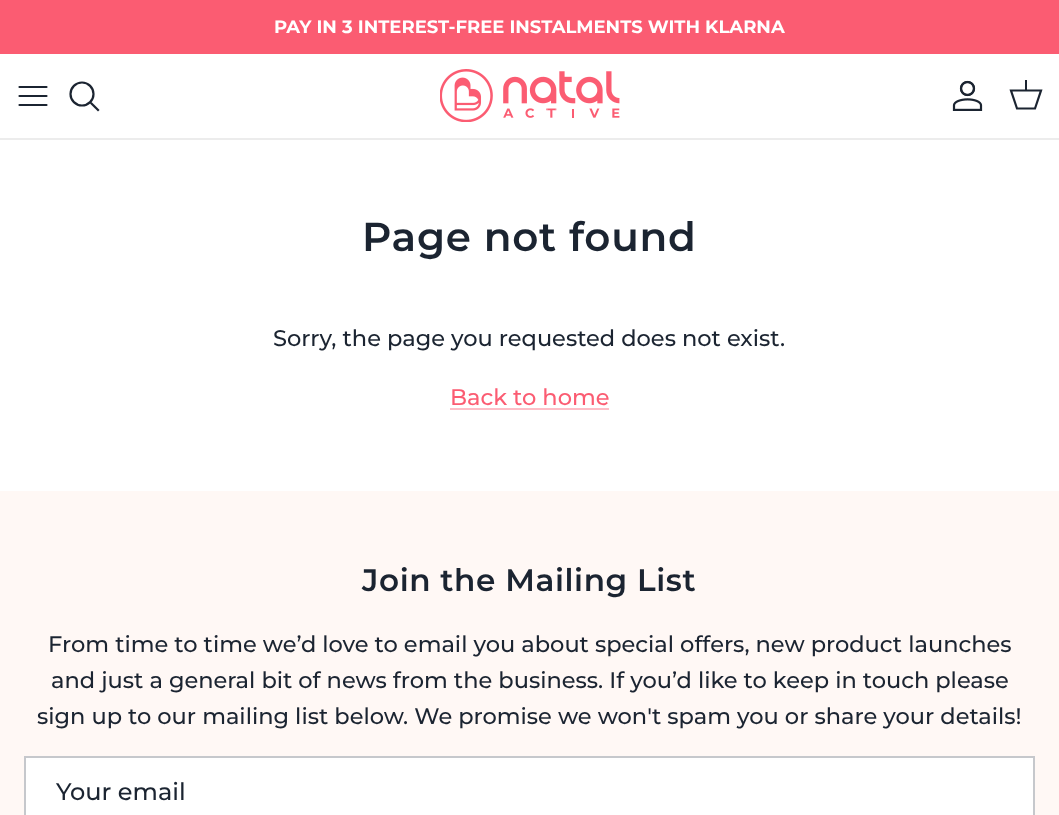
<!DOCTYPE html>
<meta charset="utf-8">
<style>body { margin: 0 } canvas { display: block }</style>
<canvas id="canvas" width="1059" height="815"></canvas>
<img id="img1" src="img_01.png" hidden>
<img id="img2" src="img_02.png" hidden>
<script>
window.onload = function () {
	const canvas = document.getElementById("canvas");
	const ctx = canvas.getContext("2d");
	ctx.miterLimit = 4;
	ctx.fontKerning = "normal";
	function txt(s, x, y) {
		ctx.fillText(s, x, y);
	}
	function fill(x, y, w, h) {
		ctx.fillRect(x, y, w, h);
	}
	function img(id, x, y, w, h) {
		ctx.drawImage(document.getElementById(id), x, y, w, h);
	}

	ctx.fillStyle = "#FFFFFF";
	fill(0, 0, 1059, 815);
	ctx.fillStyle = "#FB5C72";
	fill(0, 0, 1059, 54);
	ctx.fillStyle = "#ECECEC";
	fill(0, 138, 1059, 2);
	ctx.beginPath();
	ctx.moveTo(19.5, 96);
	ctx.lineTo(46.5, 96);
	ctx.moveTo(19.5, 87);
	ctx.lineTo(46.5, 87);
	ctx.moveTo(19.5, 105);
	ctx.lineTo(46.5, 105);
	ctx.strokeStyle = "#1B2431";
	ctx.lineWidth = 2.2;
	ctx.lineCap = "round";
	ctx.lineJoin = "round";
	ctx.stroke();
	ctx.beginPath();
	ctx.arc(82, 94, 11.5, 0, Math.PI * 2);
	ctx.stroke();
	ctx.beginPath();
	ctx.moveTo(91.5, 103.5);
	ctx.lineTo(98, 110);
	ctx.lineCap = "square";
	ctx.lineJoin = "miter";
	ctx.stroke();
	img("img1", 440, 69, 180, 53);
	img("img2", 952, 80, 31, 31);
	ctx.beginPath();
	ctx.moveTo(1011, 90.5);
	ctx.lineTo(1041, 90.5);
	ctx.lineTo(1035, 108.5);
	ctx.lineTo(1017, 108.5);
	ctx.closePath();
	ctx.lineCap = "butt";
	ctx.stroke();
	ctx.fillStyle = "#1B2431";
	fill(1025, 80, 2, 11);
	ctx.fillStyle = "#FDBEC7";
	fill(450, 408, 159, 2);
	ctx.fillStyle = "#FFF8F5";
	fill(0, 491, 1059, 324);
	ctx.fillStyle = "#FFFFFF";
	ctx.beginPath();
	ctx.rect(25, 757, 1009, 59);
	ctx.fill();
	ctx.strokeStyle = "#C6C8CC";
	ctx.lineWidth = 2;
	ctx.stroke();
	ctx.font = "bold 18px Montserrat";
	txt("PAY IN 3 INTEREST-FREE INSTALMENTS WITH KLARNA", 274, 33);
	ctx.letterSpacing = "0.75px";
	ctx.font = "600 40.5px Montserrat";
	ctx.fillStyle = "#1B2431";
	txt("Page not found", 362, 251);
	ctx.letterSpacing = "0px";
	ctx.font = "500 22.5px Montserrat";
	txt("Sorry, the page you requested does not exist.", 273, 346);
	ctx.fillStyle = "#FB5C72";
	txt("Back to home", 450, 405);
	ctx.letterSpacing = "0.6px";
	ctx.font = "600 31.1px Montserrat";
	ctx.fillStyle = "#1B2431";
	txt("Join the Mailing List", 362, 591);
	ctx.letterSpacing = "0px";
	ctx.font = "500 22.5px Montserrat";
	txt("From time to time we’d love to email you about special offers, new product launches", 48, 652);
	txt("and just a general bit of news from the business. If you’d like to keep in touch please", 51, 688);
	txt("sign up to our mailing list below. We promise we won't spam you or share your details!", 37, 724);
	ctx.font = "500 24px Montserrat";
	txt("Your email", 56, 800);
};
</script>
